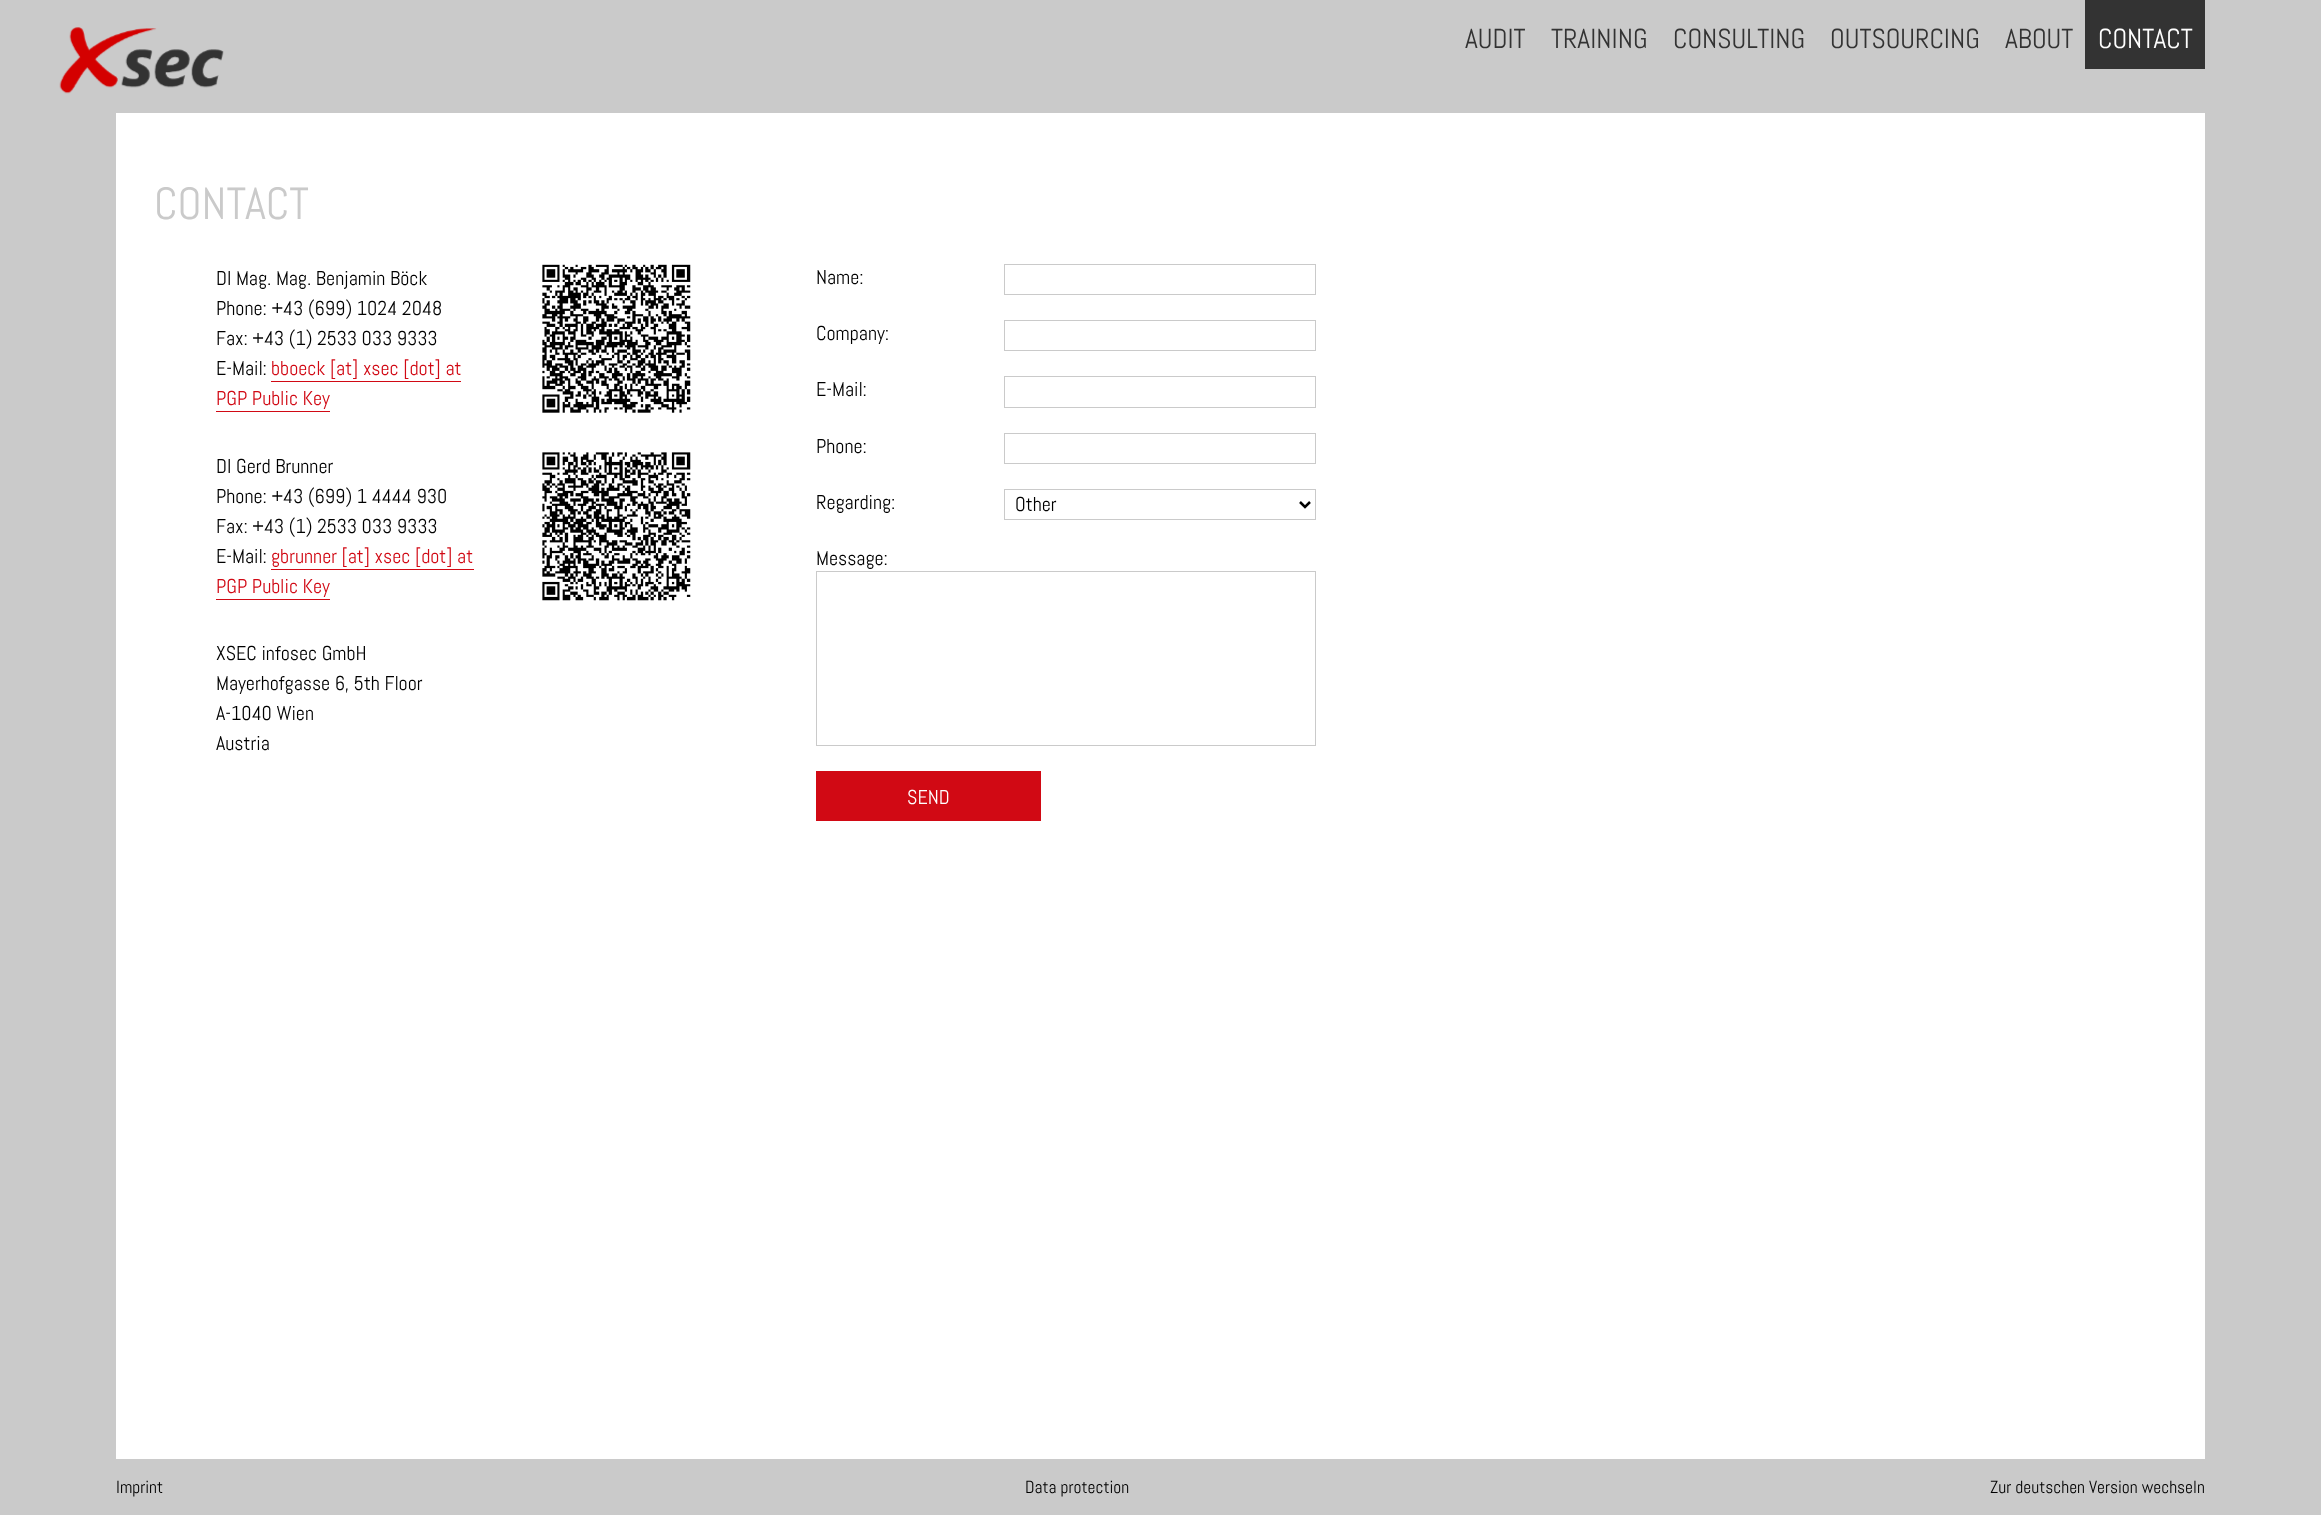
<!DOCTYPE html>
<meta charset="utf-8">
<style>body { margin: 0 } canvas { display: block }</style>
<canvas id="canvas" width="2321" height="1515"></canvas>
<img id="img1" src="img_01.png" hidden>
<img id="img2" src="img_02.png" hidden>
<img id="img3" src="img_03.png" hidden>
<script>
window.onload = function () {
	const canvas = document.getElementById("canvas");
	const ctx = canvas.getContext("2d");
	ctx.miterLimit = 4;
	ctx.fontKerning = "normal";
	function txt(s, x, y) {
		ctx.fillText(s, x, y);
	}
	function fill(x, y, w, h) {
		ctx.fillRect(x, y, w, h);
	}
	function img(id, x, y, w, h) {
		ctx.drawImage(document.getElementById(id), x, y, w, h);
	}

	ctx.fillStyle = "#CACACA";
	fill(0, 0, 2321, 1515);
	img("img1", 59, 27, 165, 67);
	ctx.fillStyle = "#333333";
	fill(2085, 0, 120, 69);
	ctx.fillStyle = "#FFFFFF";
	fill(116, 113, 2089, 1346);
	img("img2", 542, 264, 149, 149);
	ctx.fillStyle = "#D10914";
	fill(271, 381, 190, 1);
	fill(216, 411, 114, 1);
	img("img3", 542, 452, 149, 149);
	fill(271, 569, 203, 1);
	fill(216, 599, 114, 1);
	ctx.strokeStyle = "#CACACA";
	ctx.strokeRect(1004.5, 264.5, 311, 30);
	ctx.strokeRect(1004.5, 320.5, 311, 30);
	ctx.strokeRect(1004.5, 376.5, 311, 31);
	ctx.strokeRect(1004.5, 433.5, 311, 30);
	ctx.strokeRect(1004.5, 489.5, 311, 30);
	ctx.beginPath();
	ctx.moveTo(1300, 502);
	ctx.lineTo(1305, 507);
	ctx.lineTo(1310, 502);
	ctx.strokeStyle = "#000000";
	ctx.lineWidth = 2.5;
	ctx.stroke();
	ctx.strokeStyle = "#CACACA";
	ctx.lineWidth = 1;
	ctx.strokeRect(816.5, 571.5, 499, 174);
	fill(816, 771, 225, 50);
	ctx.font = "27.5px Abel";
	ctx.fillStyle = "#333333";
	txt("AUDIT", 1465, 48);
	txt("TRAINING", 1551, 48);
	txt("CONSULTING", 1673, 48);
	txt("OUTSOURCING", 1830, 48);
	txt("ABOUT", 2005, 48);
	ctx.fillStyle = "#FFFFFF";
	txt("CONTACT", 2098, 48);
	ctx.font = "45px Abel";
	ctx.fillStyle = "#CACACA";
	txt("CONTACT", 154, 219);
	ctx.font = "20px Abel";
	ctx.fillStyle = "#000000";
	txt("DI Mag. Mag. Benjamin Böck", 216, 285);
	txt("Phone: +43 (699) 1024 2048", 216, 315);
	txt("Fax: +43 (1) 2533 033 9333", 216, 345);
	txt("E-Mail:", 216, 375);
	ctx.fillStyle = "#D10914";
	txt("bboeck [at] xsec [dot] at", 271, 375);
	txt("PGP Public Key", 216, 405);
	ctx.fillStyle = "#000000";
	txt("DI Gerd Brunner", 216, 473);
	txt("Phone: +43 (699) 1 4444 930", 216, 503);
	txt("Fax: +43 (1) 2533 033 9333", 216, 533);
	txt("E-Mail:", 216, 563);
	ctx.fillStyle = "#D10914";
	txt("gbrunner [at] xsec [dot] at", 271, 563);
	txt("PGP Public Key", 216, 593);
	ctx.fillStyle = "#000000";
	txt("XSEC infosec GmbH", 216, 660);
	txt("Mayerhofgasse 6, 5th Floor", 216, 690);
	txt("A-1040 Wien", 216, 720);
	txt("Austria", 216, 750);
	txt("Name:", 816, 284);
	txt("Company:", 816, 340);
	txt("E-Mail:", 816, 396);
	txt("Phone:", 816, 453);
	txt("Regarding:", 816, 509);
	txt("Other", 1015, 511);
	txt("Message:", 816, 565);
	ctx.fillStyle = "#FFFFFF";
	txt("SEND", 907, 804);
	ctx.font = "17.5px Abel";
	ctx.fillStyle = "#000000";
	txt("Imprint", 116, 1493);
	txt("Data protection", 1025, 1493);
	txt("Zur deutschen Version wechseln", 1990, 1493);
};
</script>
